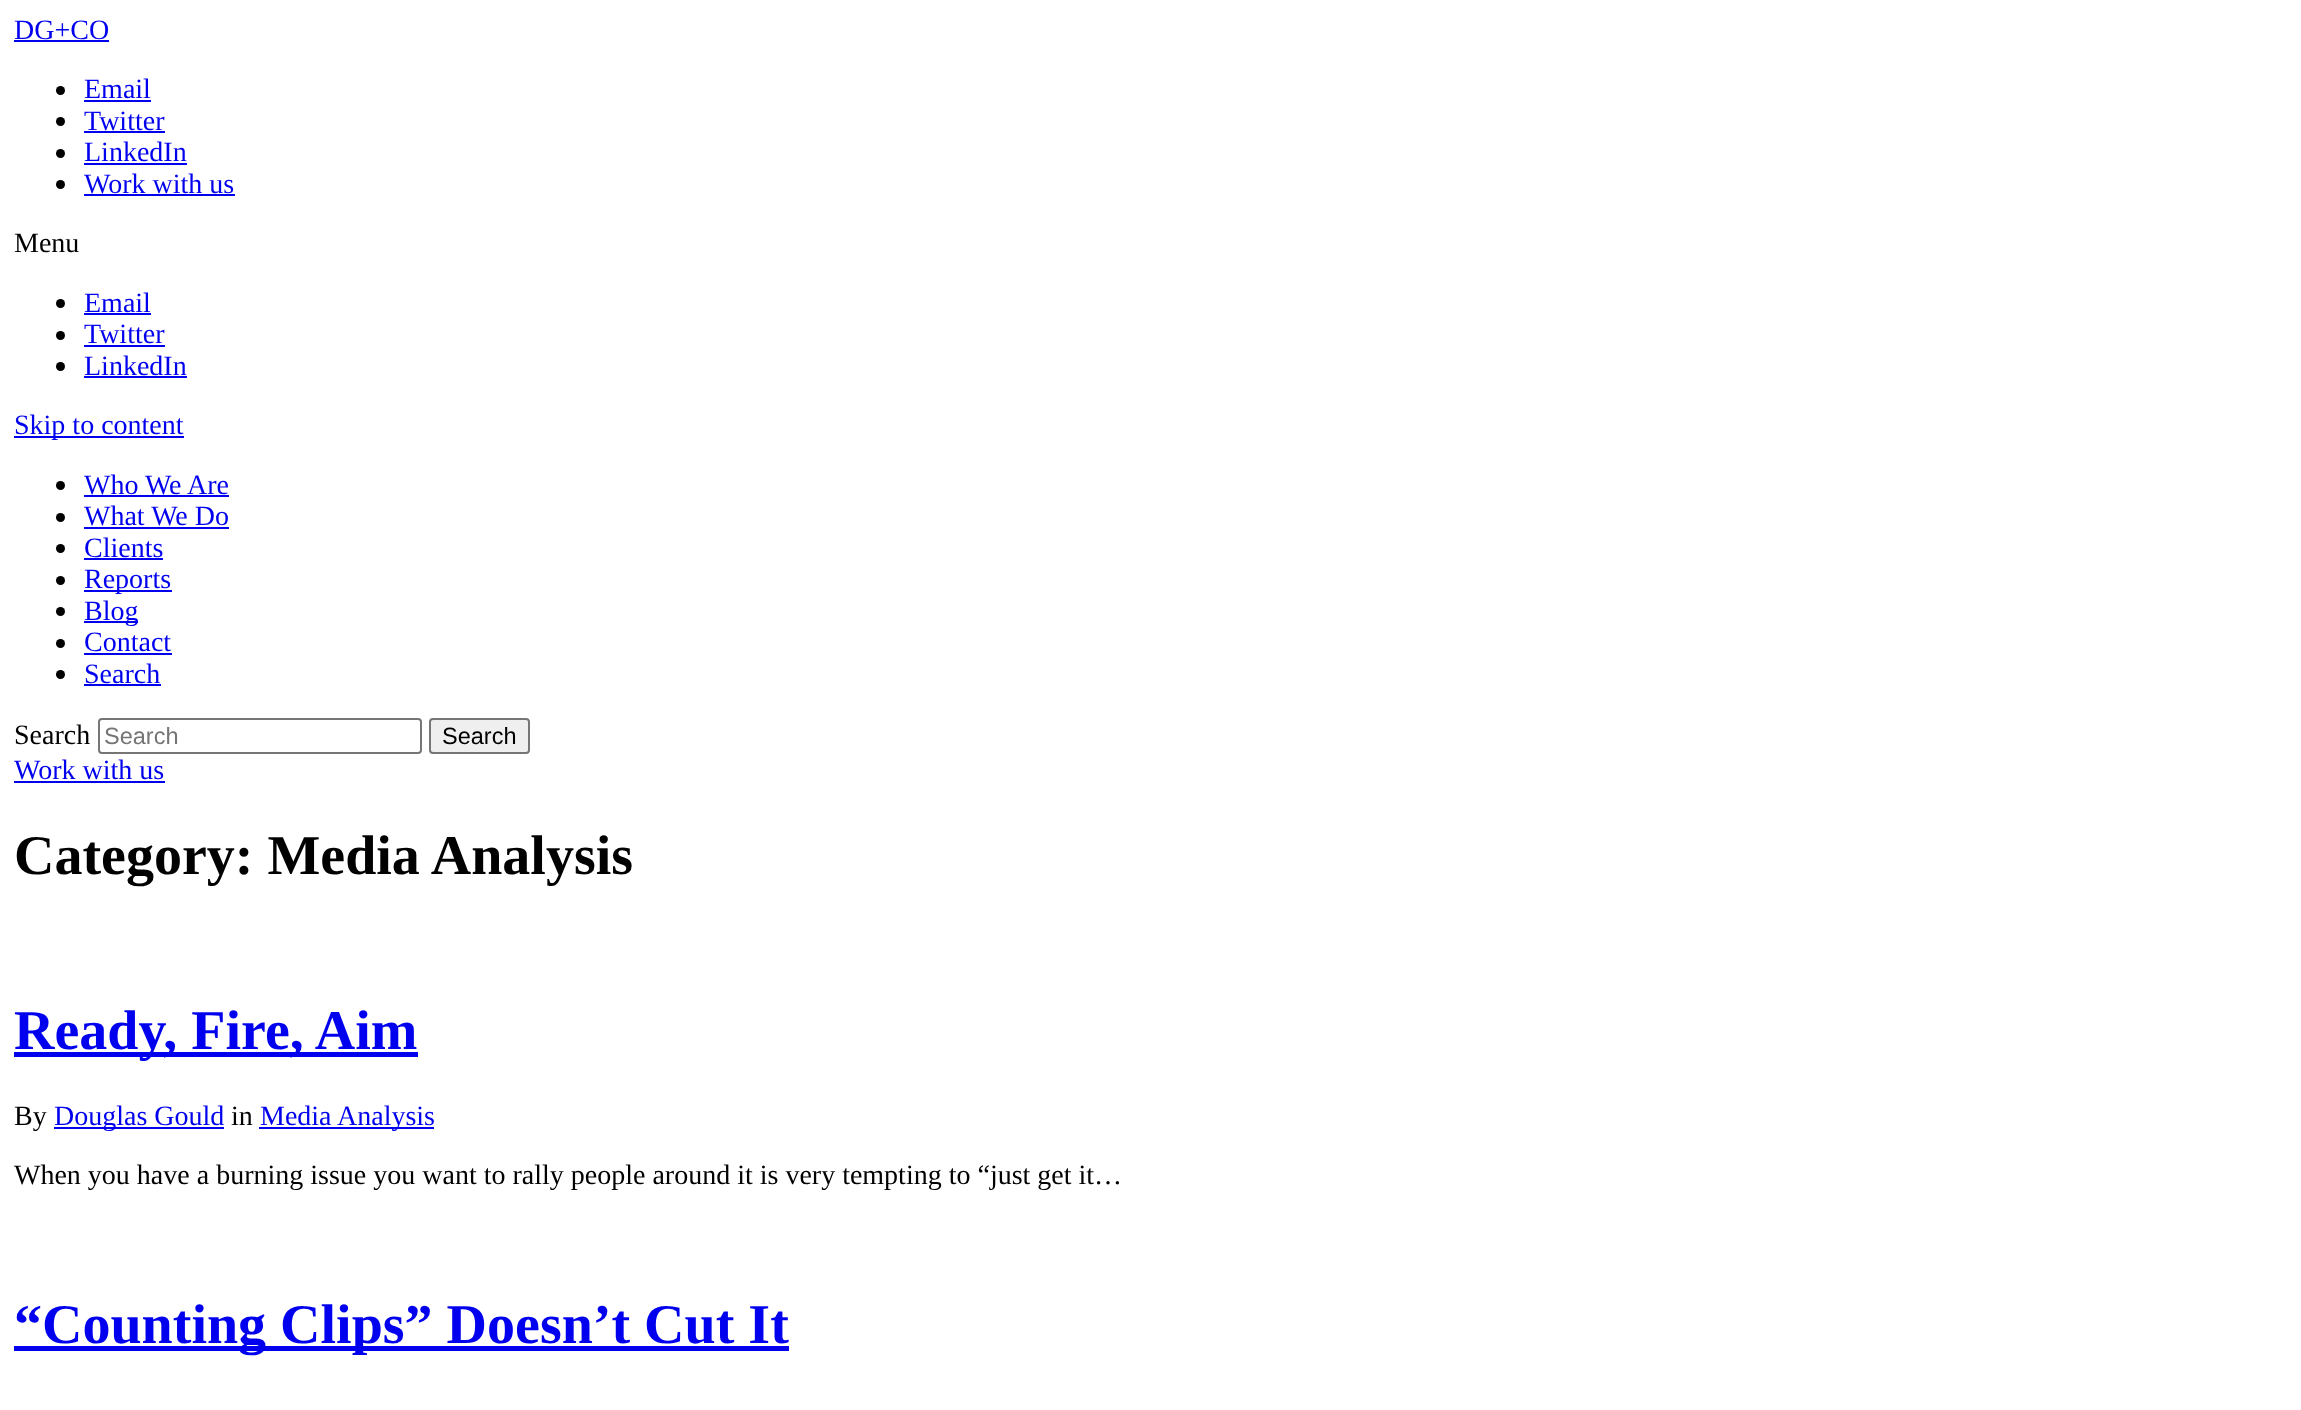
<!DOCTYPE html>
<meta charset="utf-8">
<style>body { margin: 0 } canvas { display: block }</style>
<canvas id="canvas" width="2301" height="1410"></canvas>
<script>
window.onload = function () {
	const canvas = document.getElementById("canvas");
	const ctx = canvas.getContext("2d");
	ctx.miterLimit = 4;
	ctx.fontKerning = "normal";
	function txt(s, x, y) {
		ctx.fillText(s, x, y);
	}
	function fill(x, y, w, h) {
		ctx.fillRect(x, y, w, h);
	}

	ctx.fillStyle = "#FFFFFF";
	fill(0, 0, 2301, 1410);
	ctx.fillStyle = "#0000EE";
	fill(14, 40, 95, 2);
	ctx.fillStyle = "#000000";
	ctx.beginPath();
	ctx.arc(60.5, 90.5, 4.5, 0, Math.PI * 2);
	ctx.fill();
	ctx.fillStyle = "#0000EE";
	fill(84, 100, 67, 2);
	ctx.fillStyle = "#000000";
	ctx.beginPath();
	ctx.arc(60.5, 121.5, 4.5, 0, Math.PI * 2);
	ctx.fill();
	ctx.fillStyle = "#0000EE";
	fill(84, 131, 81, 2);
	ctx.fillStyle = "#000000";
	ctx.beginPath();
	ctx.arc(60.5, 153.5, 4.5, 0, Math.PI * 2);
	ctx.fill();
	ctx.fillStyle = "#0000EE";
	fill(84, 163, 103, 2);
	ctx.fillStyle = "#000000";
	ctx.beginPath();
	ctx.arc(60.5, 184.5, 4.5, 0, Math.PI * 2);
	ctx.fill();
	ctx.fillStyle = "#0000EE";
	fill(84, 194, 151, 2);
	ctx.fillStyle = "#000000";
	ctx.beginPath();
	ctx.arc(60.5, 303.5, 4.5, 0, Math.PI * 2);
	ctx.fill();
	ctx.fillStyle = "#0000EE";
	fill(84, 313, 67, 2);
	ctx.fillStyle = "#000000";
	ctx.beginPath();
	ctx.arc(60.5, 335.5, 4.5, 0, Math.PI * 2);
	ctx.fill();
	ctx.fillStyle = "#0000EE";
	fill(84, 345, 81, 2);
	ctx.fillStyle = "#000000";
	ctx.beginPath();
	ctx.arc(60.5, 366.5, 4.5, 0, Math.PI * 2);
	ctx.fill();
	ctx.fillStyle = "#0000EE";
	fill(84, 376, 103, 2);
	fill(14, 436, 170, 2);
	ctx.fillStyle = "#000000";
	ctx.beginPath();
	ctx.arc(60.5, 485.5, 4.5, 0, Math.PI * 2);
	ctx.fill();
	ctx.fillStyle = "#0000EE";
	fill(84, 495, 145, 2);
	ctx.fillStyle = "#000000";
	ctx.beginPath();
	ctx.arc(60.5, 517.5, 4.5, 0, Math.PI * 2);
	ctx.fill();
	ctx.fillStyle = "#0000EE";
	fill(84, 527, 145, 2);
	ctx.fillStyle = "#000000";
	ctx.beginPath();
	ctx.arc(60.5, 548.5, 4.5, 0, Math.PI * 2);
	ctx.fill();
	ctx.fillStyle = "#0000EE";
	fill(84, 558, 79, 2);
	ctx.fillStyle = "#000000";
	ctx.beginPath();
	ctx.arc(60.5, 580.5, 4.5, 0, Math.PI * 2);
	ctx.fill();
	ctx.fillStyle = "#0000EE";
	fill(84, 590, 88, 2);
	ctx.fillStyle = "#000000";
	ctx.beginPath();
	ctx.arc(60.5, 611.5, 4.5, 0, Math.PI * 2);
	ctx.fill();
	ctx.fillStyle = "#0000EE";
	fill(84, 621, 54, 2);
	ctx.fillStyle = "#000000";
	ctx.beginPath();
	ctx.arc(60.5, 643.5, 4.5, 0, Math.PI * 2);
	ctx.fill();
	ctx.fillStyle = "#0000EE";
	fill(84, 653, 88, 2);
	ctx.fillStyle = "#000000";
	ctx.beginPath();
	ctx.arc(60.5, 674.5, 4.5, 0, Math.PI * 2);
	ctx.fill();
	ctx.fillStyle = "#0000EE";
	fill(84, 684, 77, 2);
	ctx.beginPath();
	ctx.roundRect(99, 719, 322, 34, 3);
	ctx.strokeStyle = "#767676";
	ctx.lineWidth = 2;
	ctx.stroke();
	ctx.fillStyle = "#EFEFEF";
	ctx.beginPath();
	ctx.roundRect(430, 719, 99, 34, 3);
	ctx.fill();
	ctx.stroke();
	ctx.fillStyle = "#0000EE";
	fill(14, 781, 151, 2);
	fill(14, 1052, 404, 5);
	fill(54, 1127, 170, 2);
	fill(259, 1127, 175, 2);
	fill(14, 1346, 775, 5);
	ctx.font = "28px Liberation Serif";
	txt("DG+CO", 14, 39);
	txt("Email", 84, 98);
	txt("Twitter", 84, 130);
	txt("LinkedIn", 84, 161);
	txt("Work with us", 84, 193);
	ctx.fillStyle = "#000000";
	txt("Menu", 14, 252);
	ctx.fillStyle = "#0000EE";
	txt("Email", 84, 312);
	txt("Twitter", 84, 343);
	txt("LinkedIn", 84, 375);
	txt("Skip to content", 14, 434);
	txt("Who We Are", 84, 494);
	txt("What We Do", 84, 525);
	txt("Clients", 84, 557);
	txt("Reports", 84, 588);
	txt("Blog", 84, 620);
	txt("Contact", 84, 651);
	txt("Search", 84, 683);
	ctx.fillStyle = "#000000";
	txt("Search", 14, 744);
	ctx.font = "23.5px Liberation Sans";
	ctx.fillStyle = "#757575";
	txt("Search", 104, 744);
	ctx.fillStyle = "#000000";
	txt("Search", 442, 744);
	ctx.font = "28px Liberation Serif";
	ctx.fillStyle = "#0000EE";
	txt("Work with us", 14, 779);
	ctx.font = "bold 56px Liberation Serif";
	ctx.fillStyle = "#000000";
	txt("Category: Media Analysis", 14, 874);
	ctx.fillStyle = "#0000EE";
	txt("Ready, Fire, Aim", 14, 1049);
	ctx.font = "28px Liberation Serif";
	ctx.fillStyle = "#000000";
	txt("By", 14, 1125);
	ctx.fillStyle = "#0000EE";
	txt("Douglas Gould", 54, 1125);
	ctx.fillStyle = "#000000";
	txt("in", 231, 1125);
	ctx.fillStyle = "#0000EE";
	txt("Media Analysis", 260, 1125);
	ctx.fillStyle = "#000000";
	txt("When you have a burning issue you want to rally people around it is very tempting to “just get it…", 14, 1184);
	ctx.font = "bold 56px Liberation Serif";
	ctx.fillStyle = "#0000EE";
	txt("“Counting Clips” Doesn’t Cut It", 14, 1343);
};
</script>
